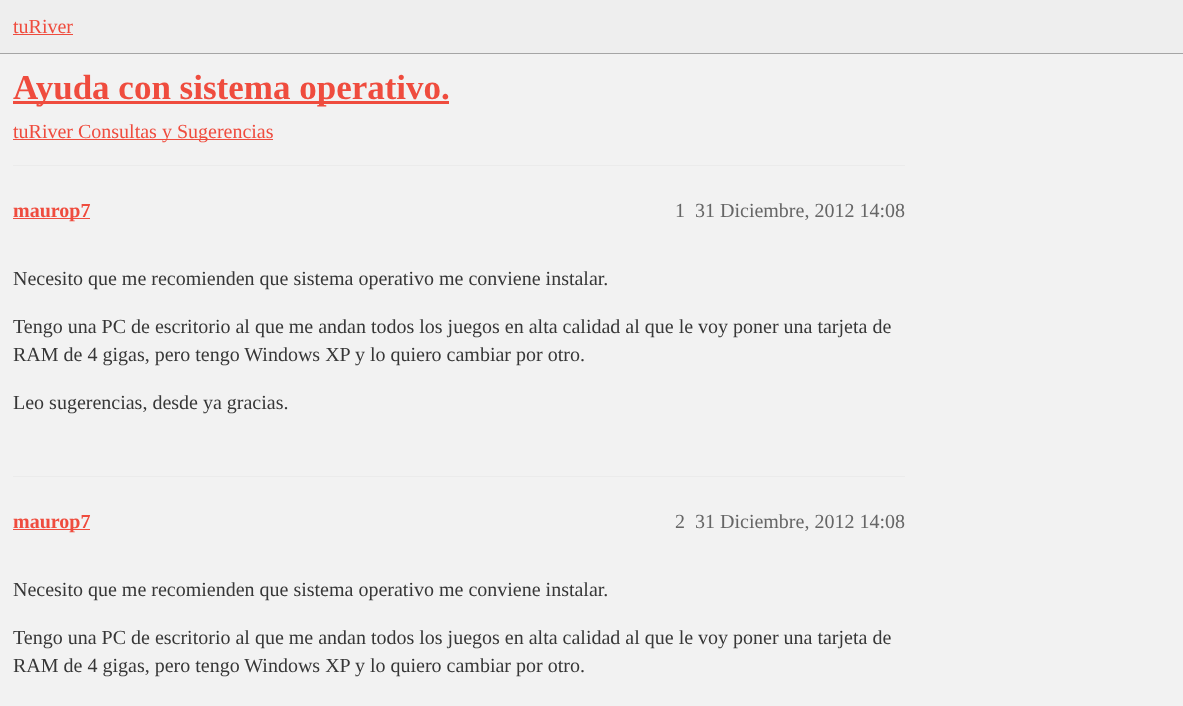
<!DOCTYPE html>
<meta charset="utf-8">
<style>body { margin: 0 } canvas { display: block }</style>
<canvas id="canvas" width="1183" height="706"></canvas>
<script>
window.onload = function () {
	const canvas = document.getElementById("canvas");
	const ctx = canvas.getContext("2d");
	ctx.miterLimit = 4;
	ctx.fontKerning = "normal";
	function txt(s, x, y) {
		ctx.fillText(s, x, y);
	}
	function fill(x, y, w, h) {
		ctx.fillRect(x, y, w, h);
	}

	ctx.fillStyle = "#F2F2F2";
	fill(0, 0, 1183, 706);
	ctx.fillStyle = "#EEEEEE";
	fill(0, 0, 1183, 53);
	ctx.fillStyle = "#A5A5A5";
	fill(0, 53, 1183, 1);
	ctx.fillStyle = "#EF4C3E";
	fill(13, 34, 60, 1);
	fill(13, 101, 436, 3);
	fill(13, 139, 260, 1);
	ctx.fillStyle = "#EBEBEB";
	fill(13, 165, 892, 1);
	ctx.fillStyle = "#EF4C3E";
	fill(13, 218, 77, 1);
	ctx.fillStyle = "#EBEBEB";
	fill(13, 476, 892, 1);
	ctx.fillStyle = "#EF4C3E";
	fill(13, 529, 77, 1);
	ctx.font = "20px Liberation Serif";
	txt("tuRiver", 13, 33);
	ctx.font = "bold 35px Liberation Serif";
	txt("Ayuda con sistema operativo.", 13, 99);
	ctx.font = "20px Liberation Serif";
	txt("tuRiver Consultas y Sugerencias", 13, 138);
	ctx.font = "bold 20px Liberation Serif";
	txt("maurop7", 13, 217);
	ctx.font = "20px Liberation Serif";
	ctx.fillStyle = "#666666";
	txt("1", 675, 217);
	txt("31 Diciembre, 2012 14:08", 695, 217);
	ctx.fillStyle = "#373737";
	txt("Necesito que me recomienden que sistema operativo me conviene instalar.", 13, 285);
	ctx.save();
	ctx.beginPath();
	ctx.rect(13, 245, 892, 191);
	ctx.clip();
	txt("Tengo una PC de escritorio al que me andan todos los juegos en alta calidad al que le voy", 13, 333);
	ctx.restore();
	txt("poner una tarjeta de", 733, 333);
	txt("RAM de 4 gigas, pero tengo Windows XP y lo quiero cambiar por otro.", 13, 361);
	txt("Leo sugerencias, desde ya gracias.", 13, 409);
	ctx.font = "bold 20px Liberation Serif";
	ctx.fillStyle = "#EF4C3E";
	txt("maurop7", 13, 528);
	ctx.font = "20px Liberation Serif";
	ctx.fillStyle = "#666666";
	txt("2", 675, 528);
	txt("31 Diciembre, 2012 14:08", 695, 528);
	ctx.fillStyle = "#373737";
	txt("Necesito que me recomienden que sistema operativo me conviene instalar.", 13, 596);
	ctx.save();
	ctx.beginPath();
	ctx.rect(13, 556, 892, 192);
	ctx.clip();
	txt("Tengo una PC de escritorio al que me andan todos los juegos en alta calidad al que le voy", 13, 644);
	ctx.restore();
	txt("poner una tarjeta de", 733, 644);
	txt("RAM de 4 gigas, pero tengo Windows XP y lo quiero cambiar por otro.", 13, 672);
};
</script>
